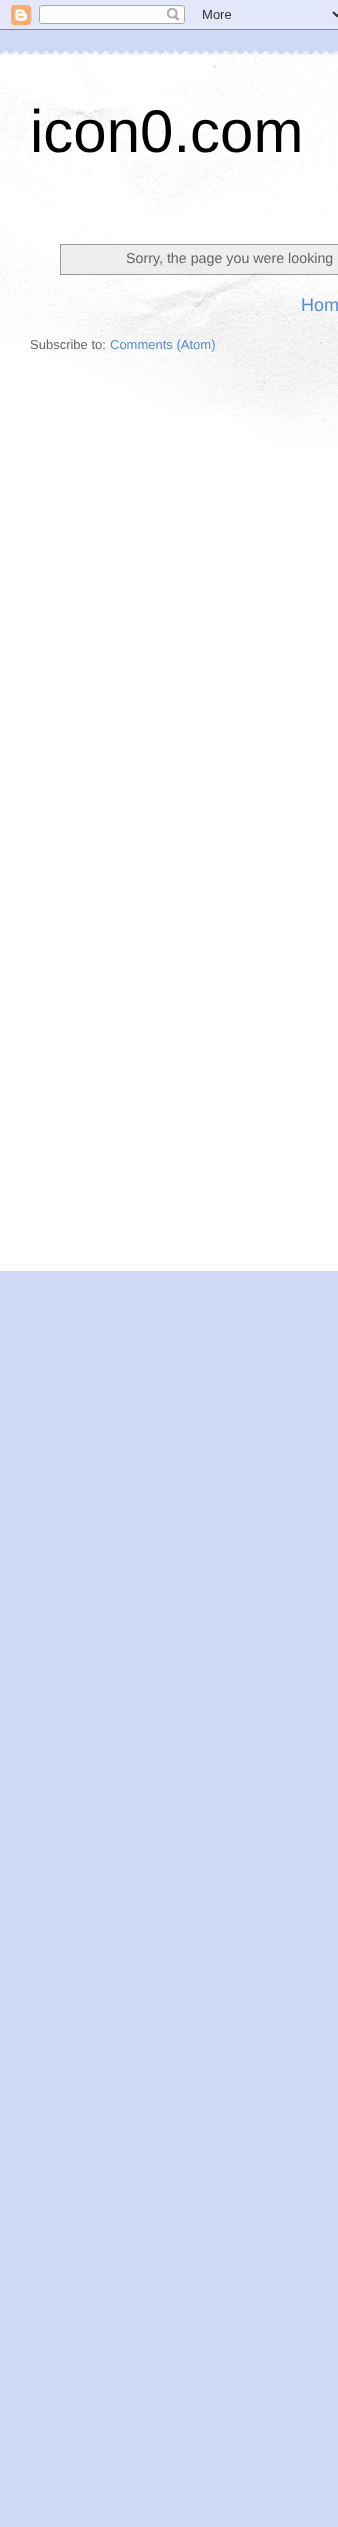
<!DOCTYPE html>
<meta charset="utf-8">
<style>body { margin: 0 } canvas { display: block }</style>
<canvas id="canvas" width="338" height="2527"></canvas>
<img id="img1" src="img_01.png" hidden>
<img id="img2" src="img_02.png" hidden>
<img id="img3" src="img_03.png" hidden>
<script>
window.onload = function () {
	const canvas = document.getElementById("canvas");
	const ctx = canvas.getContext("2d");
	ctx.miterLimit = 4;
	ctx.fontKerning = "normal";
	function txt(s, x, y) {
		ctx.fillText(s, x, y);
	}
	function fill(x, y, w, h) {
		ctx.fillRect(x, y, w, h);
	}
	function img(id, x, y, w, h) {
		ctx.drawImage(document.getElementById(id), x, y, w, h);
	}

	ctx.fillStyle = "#CFD9F6";
	fill(0, 0, 338, 2527);
	img("img1", 0, 0, 338, 30);
	img("img2", 0, 51, 338, 4);
	ctx.fillStyle = "#FFFFFF";
	fill(0, 55, 338, 1216);
	img("img3", 0, 55, 338, 392);
	ctx.strokeStyle = "rgba(0, 0, 0, 0.4)";
	ctx.strokeRect(60.5, 244.5, 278, 30);
	ctx.fillStyle = "rgba(204, 204, 204, 0.32)";
	fill(61, 245, 277, 29);
	ctx.font = "60px Liberation Sans";
	ctx.fillStyle = "#000000";
	txt("icon0.com", 30, 152);
	ctx.font = "14.25px Liberation Sans";
	ctx.fillStyle = "#666666";
	txt("Sorry, the page you were looking", 126, 263);
	ctx.font = "18px Liberation Sans";
	ctx.fillStyle = "#538CD6";
	txt("Hom", 301, 311);
	ctx.font = "13px Liberation Sans";
	ctx.fillStyle = "#666666";
	txt("Subscribe to:", 30, 349);
	ctx.fillStyle = "#538CD6";
	txt("Comments (Atom)", 110, 349);
};
</script>
